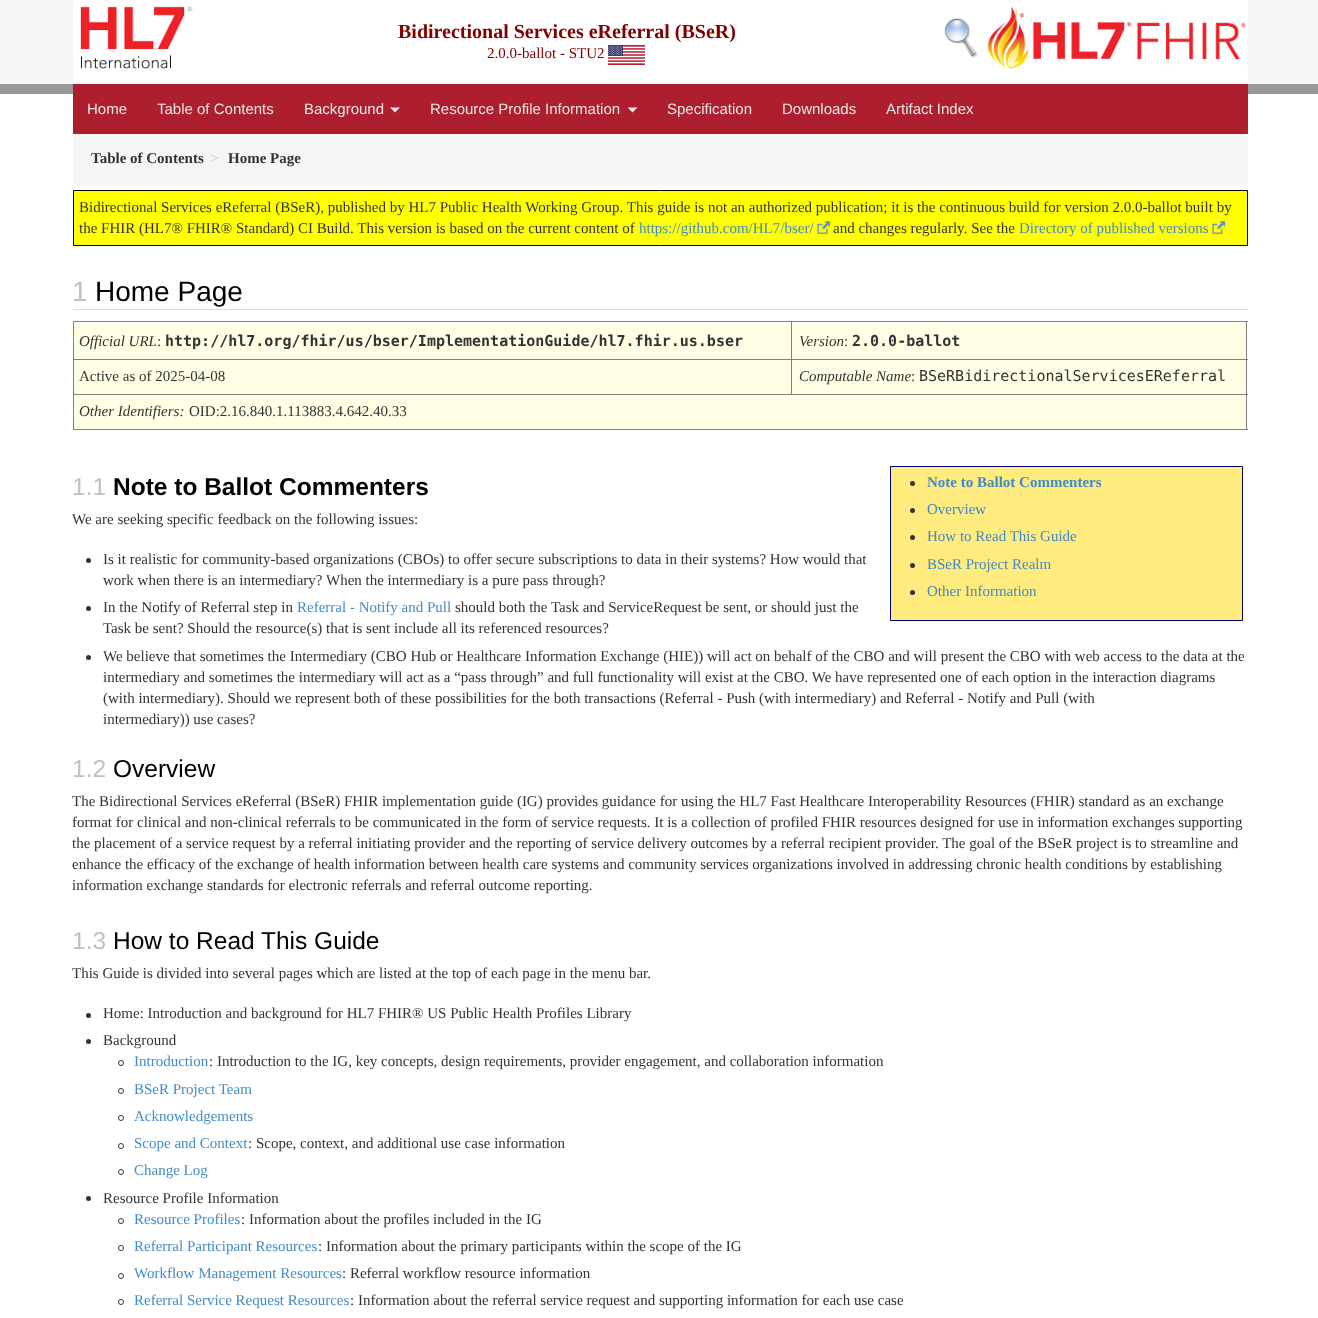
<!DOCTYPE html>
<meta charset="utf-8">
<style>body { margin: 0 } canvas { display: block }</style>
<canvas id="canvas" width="1318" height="1318"></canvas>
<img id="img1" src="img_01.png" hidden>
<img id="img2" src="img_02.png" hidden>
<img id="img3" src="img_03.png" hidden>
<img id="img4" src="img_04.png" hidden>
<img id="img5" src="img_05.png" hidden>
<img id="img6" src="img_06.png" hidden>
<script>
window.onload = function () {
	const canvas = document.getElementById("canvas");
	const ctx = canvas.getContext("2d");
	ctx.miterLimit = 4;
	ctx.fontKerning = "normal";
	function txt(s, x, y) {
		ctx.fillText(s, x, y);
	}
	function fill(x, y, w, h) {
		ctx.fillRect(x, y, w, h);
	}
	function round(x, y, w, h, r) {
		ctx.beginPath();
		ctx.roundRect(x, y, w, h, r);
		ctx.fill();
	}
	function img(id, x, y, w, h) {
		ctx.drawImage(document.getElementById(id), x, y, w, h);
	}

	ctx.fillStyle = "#FFFFFF";
	fill(0, 0, 1318, 1318);
	ctx.fillStyle = "#F5F5F5";
	fill(0, 0, 1318, 84);
	ctx.fillStyle = "#FFFFFF";
	fill(73, 0, 1175, 84);
	img("img1", 80, 6, 113, 63);
	img("img2", 608, 45, 37, 20);
	img("img3", 944, 18, 34, 40);
	img("img4", 987, 6, 259, 63);
	ctx.fillStyle = "#999999";
	fill(0, 84, 1318, 10);
	ctx.fillStyle = "#AD1F2F";
	fill(73, 84, 1175, 50);
	ctx.fillStyle = "#E6E6E6";
	ctx.beginPath();
	ctx.moveTo(390, 107.5);
	ctx.lineTo(400, 107.5);
	ctx.lineTo(395, 112.5);
	ctx.closePath();
	ctx.fill();
	ctx.beginPath();
	ctx.moveTo(627.5, 107.5);
	ctx.lineTo(637.5, 107.5);
	ctx.lineTo(632.5, 112.5);
	ctx.closePath();
	ctx.fill();
	ctx.fillStyle = "#F5F5F5";
	round(73, 134, 1175, 51, 5);
	ctx.fillStyle = "#FFFF00";
	ctx.beginPath();
	ctx.rect(73.5, 190.5, 1174, 55);
	ctx.fill();
	ctx.strokeStyle = "#0A0008";
	ctx.stroke();
	img("img5", 817, 221, 13, 13);
	img("img6", 1212, 221, 13, 13);
	ctx.fillStyle = "#DCDCDC";
	fill(73, 309, 1175, 1);
	ctx.fillStyle = "#FFFFE6";
	fill(74, 323, 1172, 36);
	ctx.fillStyle = "#808080";
	fill(791, 321, 457, 1);
	fill(791, 359, 457, 1);
	ctx.fillStyle = "#FFFFE6";
	fill(74, 360, 1172, 34);
	ctx.fillStyle = "#808080";
	fill(73, 394, 1175, 1);
	fill(791, 359, 1, 36);
	fill(73, 359, 720, 1);
	fill(791, 321, 1, 39);
	fill(73, 321, 720, 1);
	fill(1246, 394, 1, 36);
	fill(73, 429, 1175, 1);
	fill(73, 394, 1, 36);
	fill(73, 359, 1, 36);
	fill(73, 321, 1, 39);
	fill(1246, 359, 1, 36);
	fill(1246, 321, 1, 39);
	ctx.fillStyle = "#FFFFE6";
	fill(74, 395, 1172, 34);
	ctx.fillStyle = "#FFEB7E";
	ctx.beginPath();
	ctx.rect(890.5, 466.5, 352, 154);
	ctx.fill();
	ctx.strokeStyle = "#000080";
	ctx.stroke();
	ctx.fillStyle = "#333333";
	ctx.beginPath();
	ctx.arc(912.5, 483.5, 2.5, 0, Math.PI * 2);
	ctx.fill();
	ctx.beginPath();
	ctx.arc(912.5, 510.5, 2.5, 0, Math.PI * 2);
	ctx.fill();
	ctx.beginPath();
	ctx.arc(912.5, 537.5, 2.5, 0, Math.PI * 2);
	ctx.fill();
	ctx.beginPath();
	ctx.arc(912.5, 565.5, 2.5, 0, Math.PI * 2);
	ctx.fill();
	ctx.beginPath();
	ctx.arc(912.5, 592.5, 2.5, 0, Math.PI * 2);
	ctx.fill();
	ctx.beginPath();
	ctx.arc(88.5, 560.5, 2.5, 0, Math.PI * 2);
	ctx.fill();
	ctx.beginPath();
	ctx.arc(88.5, 608.5, 2.5, 0, Math.PI * 2);
	ctx.fill();
	ctx.beginPath();
	ctx.arc(88.5, 657.5, 2.5, 0, Math.PI * 2);
	ctx.fill();
	ctx.beginPath();
	ctx.arc(88.5, 1015.5, 2.5, 0, Math.PI * 2);
	ctx.fill();
	ctx.beginPath();
	ctx.arc(88.5, 1041.5, 2.5, 0, Math.PI * 2);
	ctx.fill();
	ctx.beginPath();
	ctx.arc(121, 1063, 2.5, 0, Math.PI * 2);
	ctx.strokeStyle = "#333333";
	ctx.stroke();
	ctx.beginPath();
	ctx.arc(121, 1091, 2.5, 0, Math.PI * 2);
	ctx.stroke();
	ctx.beginPath();
	ctx.arc(121, 1118, 2.5, 0, Math.PI * 2);
	ctx.stroke();
	ctx.beginPath();
	ctx.arc(121, 1146, 2.5, 0, Math.PI * 2);
	ctx.stroke();
	ctx.beginPath();
	ctx.arc(121, 1172, 2.5, 0, Math.PI * 2);
	ctx.stroke();
	ctx.beginPath();
	ctx.arc(88.5, 1198.5, 2.5, 0, Math.PI * 2);
	ctx.fill();
	ctx.beginPath();
	ctx.arc(121, 1221, 2.5, 0, Math.PI * 2);
	ctx.stroke();
	ctx.beginPath();
	ctx.arc(121, 1248, 2.5, 0, Math.PI * 2);
	ctx.stroke();
	ctx.beginPath();
	ctx.arc(121, 1276, 2.5, 0, Math.PI * 2);
	ctx.stroke();
	ctx.beginPath();
	ctx.arc(121, 1302, 2.5, 0, Math.PI * 2);
	ctx.stroke();
	ctx.font = "bold 20px Liberation Serif";
	ctx.fillStyle = "#800000";
	txt("Bidirectional Services eReferral (BSeR)", 398, 38);
	ctx.font = "15px Liberation Serif";
	txt("2.0.0-ballot - STU2", 487, 58);
	ctx.font = "15px Liberation Sans";
	ctx.fillStyle = "#E6E6E6";
	txt("Home", 87, 114);
	txt("Table of Contents", 157, 114);
	txt("Background", 304, 114);
	txt("Resource Profile Information", 430, 114);
	txt("Specification", 667, 114);
	txt("Downloads", 782, 114);
	txt("Artifact Index", 886, 114);
	ctx.font = "bold 15px Liberation Serif";
	ctx.fillStyle = "#333333";
	txt("Table of Contents", 91, 163);
	ctx.font = "15px Liberation Serif";
	ctx.fillStyle = "#CCCCCC";
	txt(">", 210, 163);
	ctx.font = "bold 15px Liberation Serif";
	ctx.fillStyle = "#333333";
	txt("Home Page", 228, 163);
	ctx.font = "15px Liberation Serif";
	txt("Bidirectional Services eReferral (BSeR), published by HL7 Public Health Working Group. This guide is not an authorized publication; it is the continuous build for version 2.0.0-ballot built by", 79, 212);
	txt("the FHIR (HL7® FHIR® Standard) CI Build. This version is based on the current content of", 79, 233);
	ctx.fillStyle = "#428BCA";
	txt("https://github.com/HL7/bser/", 639, 233);
	ctx.fillStyle = "#333333";
	txt("and changes regularly. See the", 833, 233);
	ctx.fillStyle = "#428BCA";
	txt("Directory of published versions", 1019, 233);
	ctx.font = "28px Liberation Sans";
	ctx.fillStyle = "#C0C0C0";
	txt("1", 72, 301);
	ctx.fillStyle = "#000000";
	txt("Home Page", 95, 301);
	ctx.font = "italic 15px Liberation Serif";
	ctx.fillStyle = "#333333";
	txt("Official URL", 79, 346);
	ctx.font = "15px Liberation Serif";
	txt(":", 157, 346);
	ctx.font = "bold 15px DejaVu Sans Mono";
	txt("http://hl7.org/fhir/us/bser/ImplementationGuide/hl7.fhir.us.bser", 165, 346);
	ctx.font = "italic 15px Liberation Serif";
	txt("Version", 799, 346);
	ctx.font = "15px Liberation Serif";
	txt(":", 844, 346);
	ctx.font = "bold 15px DejaVu Sans Mono";
	txt("2.0.0-ballot", 852, 346);
	ctx.font = "15px Liberation Serif";
	txt("Active as of 2025-04-08", 79, 381);
	ctx.font = "italic 15px Liberation Serif";
	txt("Computable Name", 799, 381);
	ctx.font = "15px Liberation Serif";
	txt(":", 911, 381);
	ctx.font = "15px DejaVu Sans Mono";
	txt("BSeRBidirectionalServicesEReferral", 919, 381);
	ctx.font = "italic 15px Liberation Serif";
	txt("Other Identifiers:", 79, 416);
	ctx.font = "15px Liberation Serif";
	txt("OID:2.16.840.1.113883.4.642.40.33", 189, 416);
	ctx.font = "24.5px Liberation Sans";
	ctx.fillStyle = "#C0C0C0";
	txt("1.1", 72, 495);
	ctx.font = "bold 24.5px Liberation Sans";
	ctx.fillStyle = "#000000";
	txt("Note to Ballot Commenters", 113, 495);
	ctx.font = "bold 15px Liberation Serif";
	ctx.fillStyle = "#428BCA";
	txt("Note to Ballot Commenters", 927, 487);
	ctx.font = "15px Liberation Serif";
	txt("Overview", 927, 514);
	txt("How to Read This Guide", 927, 541);
	txt("BSeR Project Realm", 927, 569);
	txt("Other Information", 927, 596);
	ctx.fillStyle = "#333333";
	txt("We are seeking specific feedback on the following issues:", 72, 524);
	txt("Is it realistic for community-based organizations (CBOs) to offer secure subscriptions to data in their systems? How would that", 103, 564);
	txt("work when there is an intermediary? When the intermediary is a pure pass through?", 103, 585);
	txt("In the Notify of Referral step in", 103, 612);
	ctx.fillStyle = "#428BCA";
	txt("Referral - Notify and Pull", 297, 612);
	ctx.fillStyle = "#333333";
	txt("should both the Task and ServiceRequest be sent, or should just the", 455, 612);
	txt("Task be sent? Should the resource(s) that is sent include all its referenced resources?", 103, 633);
	txt("We believe that sometimes the Intermediary (CBO Hub or Healthcare Information Exchange (HIE)) will act on behalf of the CBO and will present the CBO with web access to the data at the", 103, 661);
	txt("intermediary and sometimes the intermediary will act as a “pass through” and full functionality will exist at the CBO. We have represented one of each option in the interaction diagrams", 103, 682);
	txt("(with intermediary). Should we represent both of these possibilities for the both transactions (Referral - Push (with intermediary) and Referral - Notify and Pull (with", 103, 703);
	txt("intermediary)) use cases?", 103, 724);
	ctx.font = "24.5px Liberation Sans";
	ctx.fillStyle = "#C0C0C0";
	txt("1.2", 72, 777);
	ctx.fillStyle = "#000000";
	txt("Overview", 113, 777);
	ctx.font = "15px Liberation Serif";
	ctx.fillStyle = "#333333";
	txt("The Bidirectional Services eReferral (BSeR) FHIR implementation guide (IG) provides guidance for using the HL7 Fast Healthcare Interoperability Resources (FHIR) standard as an exchange", 72, 806);
	txt("format for clinical and non-clinical referrals to be communicated in the form of service requests. It is a collection of profiled FHIR resources designed for use in information exchanges supporting", 72, 827);
	txt("the placement of a service request by a referral initiating provider and the reporting of service delivery outcomes by a referral recipient provider. The goal of the BSeR project is to streamline and", 72, 848);
	txt("enhance the efficacy of the exchange of health information between health care systems and community services organizations involved in addressing chronic health conditions by establishing", 72, 869);
	txt("information exchange standards for electronic referrals and referral outcome reporting.", 72, 890);
	ctx.font = "24.5px Liberation Sans";
	ctx.fillStyle = "#C0C0C0";
	txt("1.3", 72, 949);
	ctx.fillStyle = "#000000";
	txt("How to Read This Guide", 113, 949);
	ctx.font = "15px Liberation Serif";
	ctx.fillStyle = "#333333";
	txt("This Guide is divided into several pages which are listed at the top of each page in the menu bar.", 72, 978);
	txt("Home: Introduction and background for HL7 FHIR® US Public Health Profiles Library", 103, 1018);
	txt("Background", 103, 1045);
	ctx.fillStyle = "#428BCA";
	txt("Introduction", 134, 1066);
	ctx.fillStyle = "#333333";
	txt(": Introduction to the IG, key concepts, design requirements, provider engagement, and collaboration information", 209, 1066);
	ctx.fillStyle = "#428BCA";
	txt("BSeR Project Team", 134, 1094);
	txt("Acknowledgements", 134, 1121);
	txt("Scope and Context", 134, 1148);
	ctx.fillStyle = "#333333";
	txt(": Scope, context, and additional use case information", 248, 1148);
	ctx.fillStyle = "#428BCA";
	txt("Change Log", 134, 1175);
	ctx.fillStyle = "#333333";
	txt("Resource Profile Information", 103, 1203);
	ctx.fillStyle = "#428BCA";
	txt("Resource Profiles", 134, 1224);
	ctx.fillStyle = "#333333";
	txt(": Information about the profiles included in the IG", 241, 1224);
	ctx.fillStyle = "#428BCA";
	txt("Referral Participant Resources", 134, 1251);
	ctx.fillStyle = "#333333";
	txt(": Information about the primary participants within the scope of the IG", 318, 1251);
	ctx.fillStyle = "#428BCA";
	txt("Workflow Management Resources", 134, 1278);
	ctx.fillStyle = "#333333";
	txt(": Referral workflow resource information", 342, 1278);
	ctx.fillStyle = "#428BCA";
	txt("Referral Service Request Resources", 134, 1305);
	ctx.fillStyle = "#333333";
	txt(": Information about the referral service request and supporting information for each use case", 350, 1305);
};
</script>
